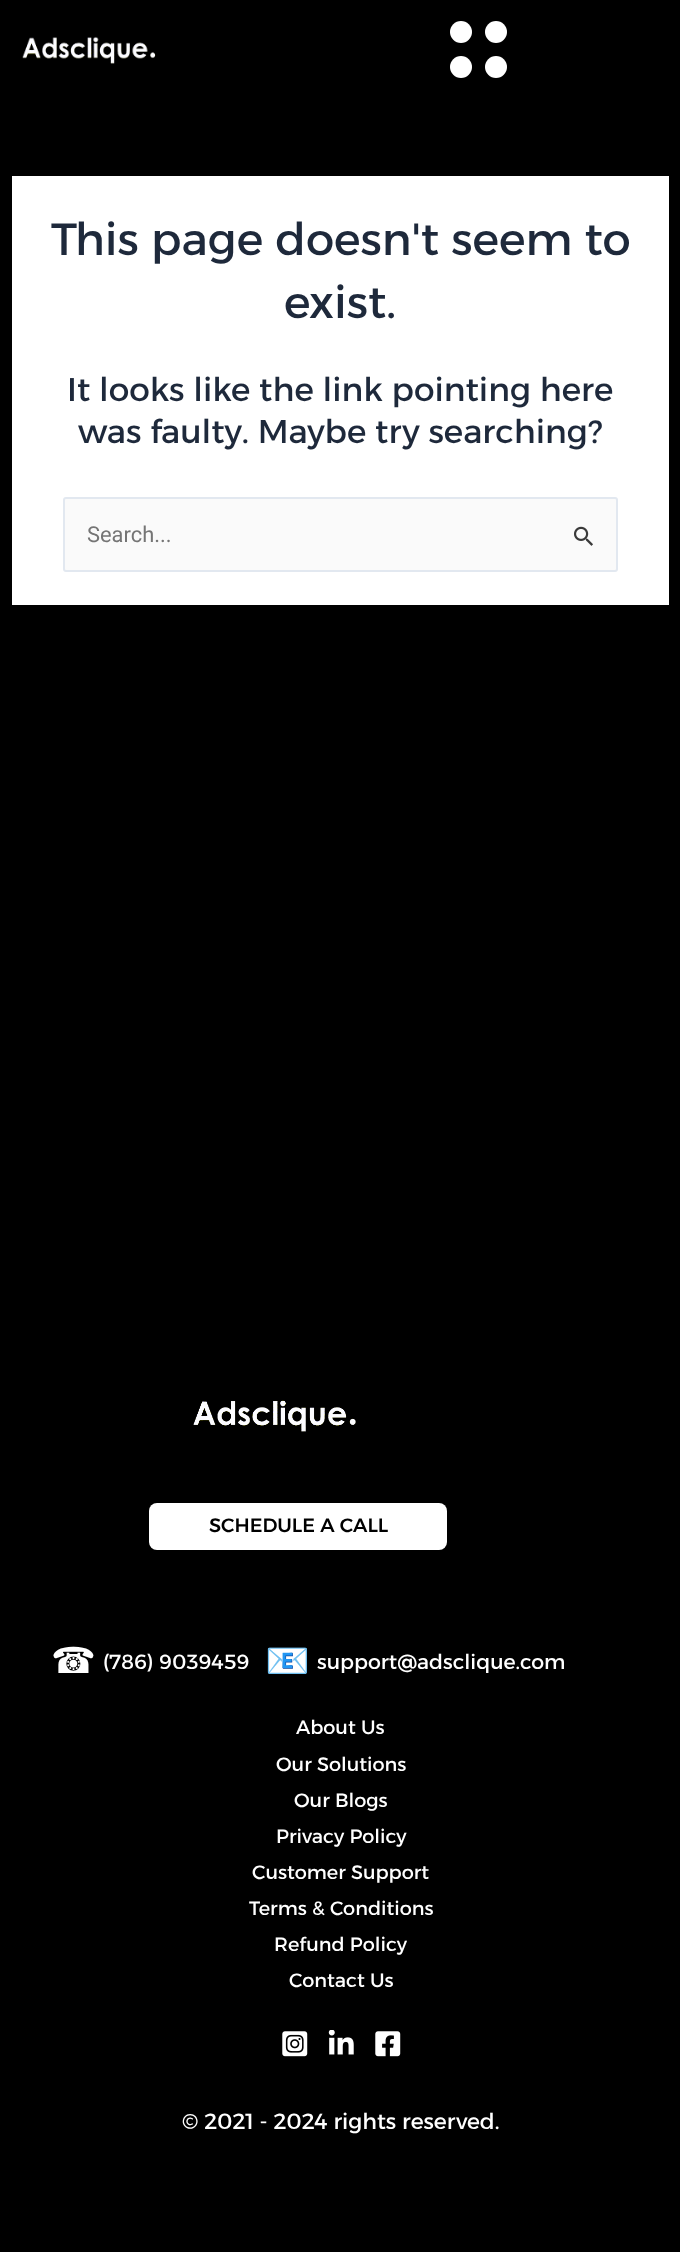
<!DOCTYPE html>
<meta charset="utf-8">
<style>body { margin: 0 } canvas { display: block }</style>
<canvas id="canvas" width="680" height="2252"></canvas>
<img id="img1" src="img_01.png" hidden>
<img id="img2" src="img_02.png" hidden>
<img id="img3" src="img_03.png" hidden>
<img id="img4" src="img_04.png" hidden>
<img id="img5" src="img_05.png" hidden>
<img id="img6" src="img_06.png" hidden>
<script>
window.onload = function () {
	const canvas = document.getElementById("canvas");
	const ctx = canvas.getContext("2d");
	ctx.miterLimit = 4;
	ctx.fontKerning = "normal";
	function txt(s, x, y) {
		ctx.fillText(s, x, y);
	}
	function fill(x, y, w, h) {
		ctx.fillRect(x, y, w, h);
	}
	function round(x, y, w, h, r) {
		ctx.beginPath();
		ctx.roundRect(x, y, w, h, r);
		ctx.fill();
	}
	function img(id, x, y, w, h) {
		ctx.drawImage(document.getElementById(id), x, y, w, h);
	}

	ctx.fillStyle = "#000000";
	fill(0, 0, 680, 2252);
	img("img1", 22, 36, 134, 28);
	ctx.fillStyle = "#FFFFFF";
	ctx.beginPath();
	ctx.arc(461, 32, 11, 0, Math.PI * 2);
	ctx.fill();
	ctx.beginPath();
	ctx.arc(496, 32, 11, 0, Math.PI * 2);
	ctx.fill();
	ctx.beginPath();
	ctx.arc(496, 67, 11, 0, Math.PI * 2);
	ctx.fill();
	ctx.beginPath();
	ctx.arc(461, 67, 11, 0, Math.PI * 2);
	ctx.fill();
	fill(12, 176, 657, 429);
	ctx.fillStyle = "#FAFAFA";
	ctx.beginPath();
	ctx.roundRect(64, 498, 553, 73, 2);
	ctx.fill();
	ctx.strokeStyle = "#E2E8F0";
	ctx.lineWidth = 2;
	ctx.stroke();
	img("img2", 574, 526, 19, 20);
	img("img3", 193, 1400, 163, 32);
	ctx.fillStyle = "#FFFFFF";
	round(149, 1503, 298, 47, 8);
	img("img4", 282, 2031, 26, 26);
	img("img5", 328, 2030, 26, 25);
	img("img6", 375, 2031, 26, 26);
	ctx.font = "45px Alexandria";
	ctx.fillStyle = "#1E293B";
	txt("This page doesn't seem to", 51, 255);
	txt("exist.", 284, 318);
	ctx.font = "32.8px Alexandria";
	txt("It looks like the link pointing here", 67, 401);
	txt("was faulty. Maybe try searching?", 78, 443);
	ctx.font = "21.9px Roboto";
	ctx.fillStyle = "#757575";
	txt("Search...", 87, 542);
	ctx.font = "500 19.25px Alexandria";
	ctx.fillStyle = "#000000";
	txt("SCHEDULE A CALL", 209, 1532);
	ctx.font = "36px DejaVu Sans";
	ctx.fillStyle = "#FFFFFF";
	txt("☎", 51, 1673);
	ctx.font = "20.5px Alexandria";
	txt("(786) 9039459", 103, 1669);
	ctx.font = "36px Noto Color Emoji";
	txt("📧", 265, 1673);
	ctx.font = "20.5px Alexandria";
	txt("support@adsclique.com", 317, 1669);
	ctx.font = "19.25px Alexandria";
	txt("About Us", 296, 1734);
	txt("Our Solutions", 276, 1771);
	txt("Our Blogs", 294, 1807);
	txt("Privacy Policy", 276, 1843);
	txt("Customer Support", 252, 1879);
	txt("Terms & Conditions", 249, 1915);
	txt("Refund Policy", 274, 1951);
	txt("Contact Us", 289, 1987);
	ctx.font = "21.9px Alexandria";
	txt("© 2021 - 2024 rights reserved.", 182, 2129);
};
</script>
